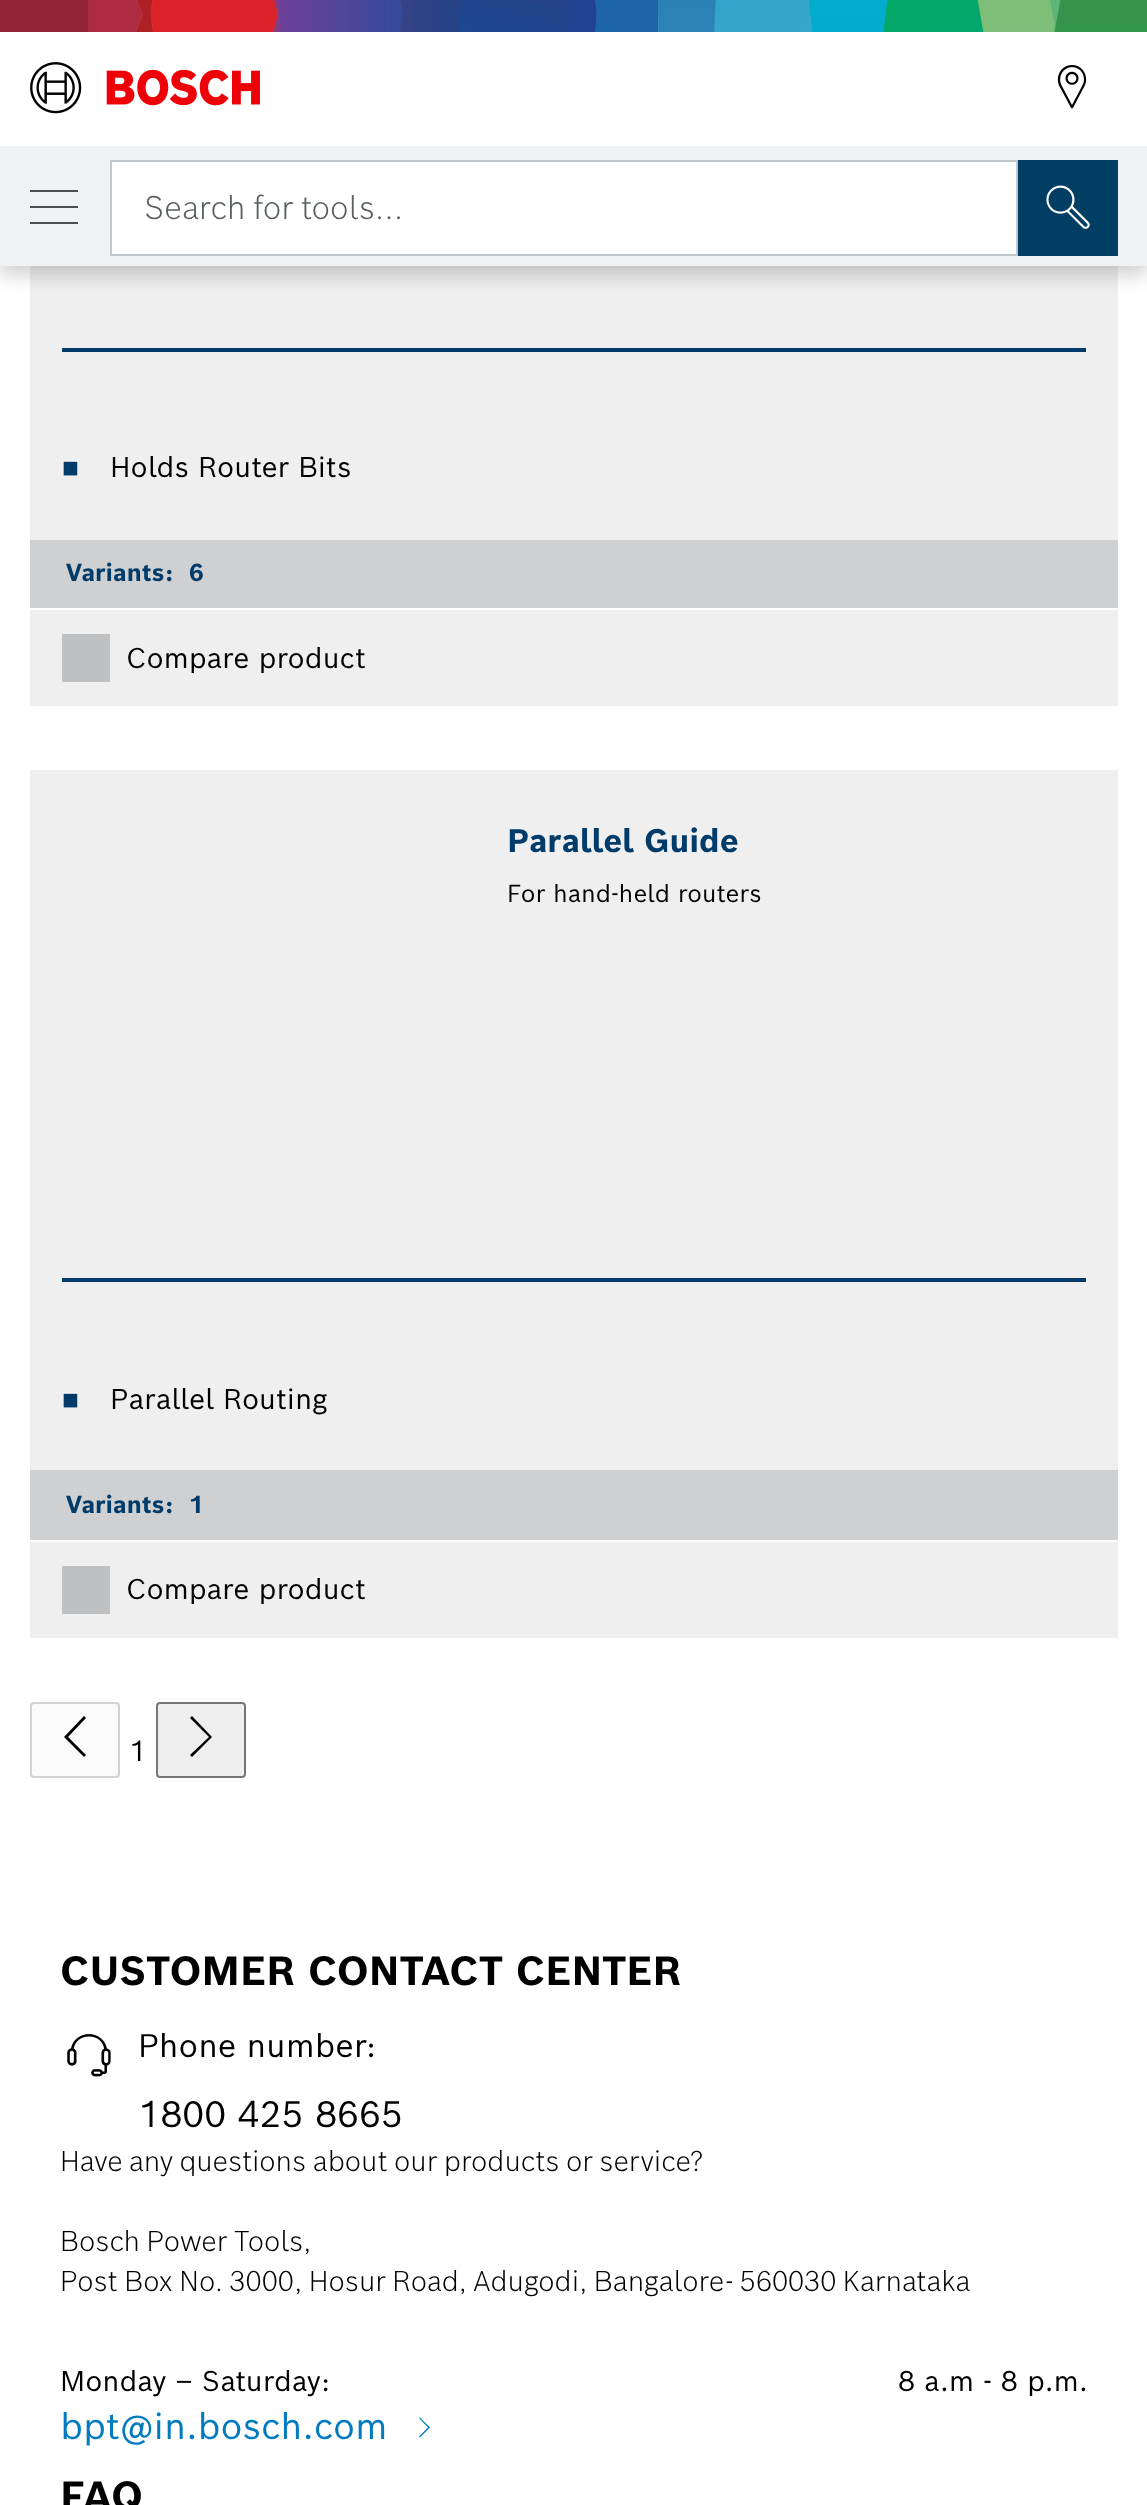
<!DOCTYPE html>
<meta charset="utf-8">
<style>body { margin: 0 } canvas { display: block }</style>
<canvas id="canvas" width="1147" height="2505"></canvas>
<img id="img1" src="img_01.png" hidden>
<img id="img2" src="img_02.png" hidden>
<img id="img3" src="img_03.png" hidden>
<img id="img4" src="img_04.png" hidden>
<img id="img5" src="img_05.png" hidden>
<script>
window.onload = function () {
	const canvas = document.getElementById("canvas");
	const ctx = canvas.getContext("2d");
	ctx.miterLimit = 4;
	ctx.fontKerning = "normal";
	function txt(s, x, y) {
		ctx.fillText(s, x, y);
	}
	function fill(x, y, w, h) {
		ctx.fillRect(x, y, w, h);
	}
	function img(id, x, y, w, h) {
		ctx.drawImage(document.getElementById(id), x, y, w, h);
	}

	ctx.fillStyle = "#FFFFFF";
	fill(0, 0, 1147, 2505);
	ctx.fillStyle = "#EFEFF0";
	fill(30, 0, 1088, 706);
	ctx.fillStyle = "rgba(0, 0, 0, 0.2)";
	ctx.filter = "blur(10px)";
	ctx.beginPath();
	ctx.rect(0, 40, 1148, 234);
	ctx.fill();
	ctx.filter = "none";
	img("img1", 0, 0, 1147, 32);
	ctx.fillStyle = "#FFFFFF";
	fill(0, 32, 1147, 114);
	ctx.fillStyle = "#EFF1F2";
	fill(0, 146, 1147, 120);
	ctx.fillStyle = "#4D4D4D";
	fill(30, 190, 48, 2);
	fill(30, 206, 48, 2);
	fill(30, 222, 48, 2);
	img("img2", 30, 62, 230, 52);
	img("img3", 1057, 65, 30, 44);
	ctx.fillStyle = "#FFFFFF";
	ctx.beginPath();
	ctx.rect(111, 161, 906, 94);
	ctx.fill();
	ctx.strokeStyle = "#C1C7CC";
	ctx.lineWidth = 2;
	ctx.stroke();
	ctx.fillStyle = "#003E64";
	fill(1018, 160, 100, 96);
	img("img4", 1046, 185, 44, 44);
	ctx.fillStyle = "#003B6A";
	fill(62, 348, 1024, 4);
	ctx.fillStyle = "#FFFFFF";
	fill(30, 608, 1088, 2);
	ctx.fillStyle = "#CFD0D1";
	fill(30, 540, 1088, 68);
	ctx.fillStyle = "#BFC0C2";
	fill(62, 634, 48, 48);
	ctx.fillStyle = "#EFEFF0";
	fill(30, 770, 1088, 868);
	ctx.fillStyle = "#003B6A";
	fill(62, 1278, 1024, 4);
	ctx.fillStyle = "#FFFFFF";
	fill(30, 1540, 1088, 2);
	ctx.fillStyle = "#CFD0D1";
	fill(30, 1470, 1088, 70);
	ctx.fillStyle = "#BFC0C2";
	fill(62, 1566, 48, 48);
	ctx.fillStyle = "#FAFAFA";
	ctx.beginPath();
	ctx.roundRect(31, 1703, 88, 74, 3);
	ctx.fill();
	ctx.strokeStyle = "#D2D2D2";
	ctx.stroke();
	ctx.fillStyle = "#000000";
	ctx.beginPath();
	ctx.moveTo(86, 1718);
	ctx.lineTo(84, 1716);
	ctx.lineTo(64, 1737);
	ctx.lineTo(84, 1757);
	ctx.lineTo(86, 1755);
	ctx.lineTo(68, 1737);
	ctx.closePath();
	ctx.fill();
	ctx.fillStyle = "#EFEFEF";
	ctx.beginPath();
	ctx.roundRect(157, 1703, 88, 74, 3);
	ctx.fill();
	ctx.strokeStyle = "#767676";
	ctx.stroke();
	ctx.fillStyle = "#000000";
	ctx.beginPath();
	ctx.moveTo(192, 1716);
	ctx.lineTo(212, 1737);
	ctx.lineTo(192, 1757);
	ctx.lineTo(190, 1755);
	ctx.lineTo(209, 1737);
	ctx.lineTo(190, 1718);
	ctx.closePath();
	ctx.fill();
	img("img5", 67, 2034, 44, 43);
	ctx.fillStyle = "#007BC0";
	ctx.beginPath();
	ctx.moveTo(420, 2417.5);
	ctx.lineTo(430, 2427.5);
	ctx.lineTo(420, 2437.5);
	ctx.lineTo(419, 2436.5);
	ctx.lineTo(428, 2427.5);
	ctx.lineTo(419, 2418);
	ctx.closePath();
	ctx.fill();
	ctx.font = "300 32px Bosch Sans";
	ctx.fillStyle = "#595E62";
	txt("Search for tools...", 144, 219);
	ctx.font = "28px Liberation Sans";
	ctx.fillStyle = "#003B6A";
	txt("■", 62, 477);
	ctx.font = "28px Bosch Sans";
	ctx.fillStyle = "#000000";
	txt("Holds Router Bits", 110, 477);
	ctx.font = "bold 24px Bosch Sans";
	ctx.fillStyle = "#003B6A";
	txt("Variants:", 66, 581);
	txt("6", 189, 581);
	ctx.font = "28px Bosch Sans";
	ctx.fillStyle = "#000000";
	txt("Compare product", 126, 668);
	ctx.font = "bold 32px Bosch Sans";
	ctx.fillStyle = "#003B6A";
	txt("Parallel Guide", 507, 852);
	ctx.font = "24px Bosch Sans";
	ctx.fillStyle = "#000000";
	txt("For hand-held routers", 507, 902);
	ctx.font = "28px Liberation Sans";
	ctx.fillStyle = "#003B6A";
	txt("■", 62, 1409);
	ctx.font = "28px Bosch Sans";
	ctx.fillStyle = "#000000";
	txt("Parallel Routing", 110, 1409);
	ctx.font = "bold 24px Bosch Sans";
	ctx.fillStyle = "#003B6A";
	txt("Variants:", 66, 1513);
	txt("1", 189, 1513);
	ctx.font = "28px Bosch Sans";
	ctx.fillStyle = "#000000";
	txt("Compare product", 126, 1599);
	txt("1", 129, 1761);
	ctx.font = "bold 40px Bosch Sans";
	txt("CUSTOMER CONTACT CENTER", 60, 1985);
	ctx.font = "32px Bosch Sans";
	txt("Phone number:", 138, 2057);
	ctx.font = "36px Bosch Sans";
	txt("1800 425 8665", 138, 2127);
	ctx.font = "300 28px Bosch Sans";
	txt("Have any questions about our products or service?", 60, 2171);
	txt("Bosch Power Tools,", 60, 2251);
	txt("Post Box No. 3000, Hosur Road, Adugodi, Bangalore- 560030 Karnataka", 60, 2291);
	ctx.font = "28px Bosch Sans";
	txt("Monday – Saturday:", 60, 2391);
	txt("8 a.m - 8 p.m.", 898, 2391);
	ctx.font = "36px Bosch Sans";
	ctx.fillStyle = "#007BC0";
	txt("bpt@in.bosch.com", 60, 2439);
	ctx.font = "bold 40px Bosch Sans";
	ctx.fillStyle = "#000000";
	txt("FAQ", 60, 2510);
};
</script>
